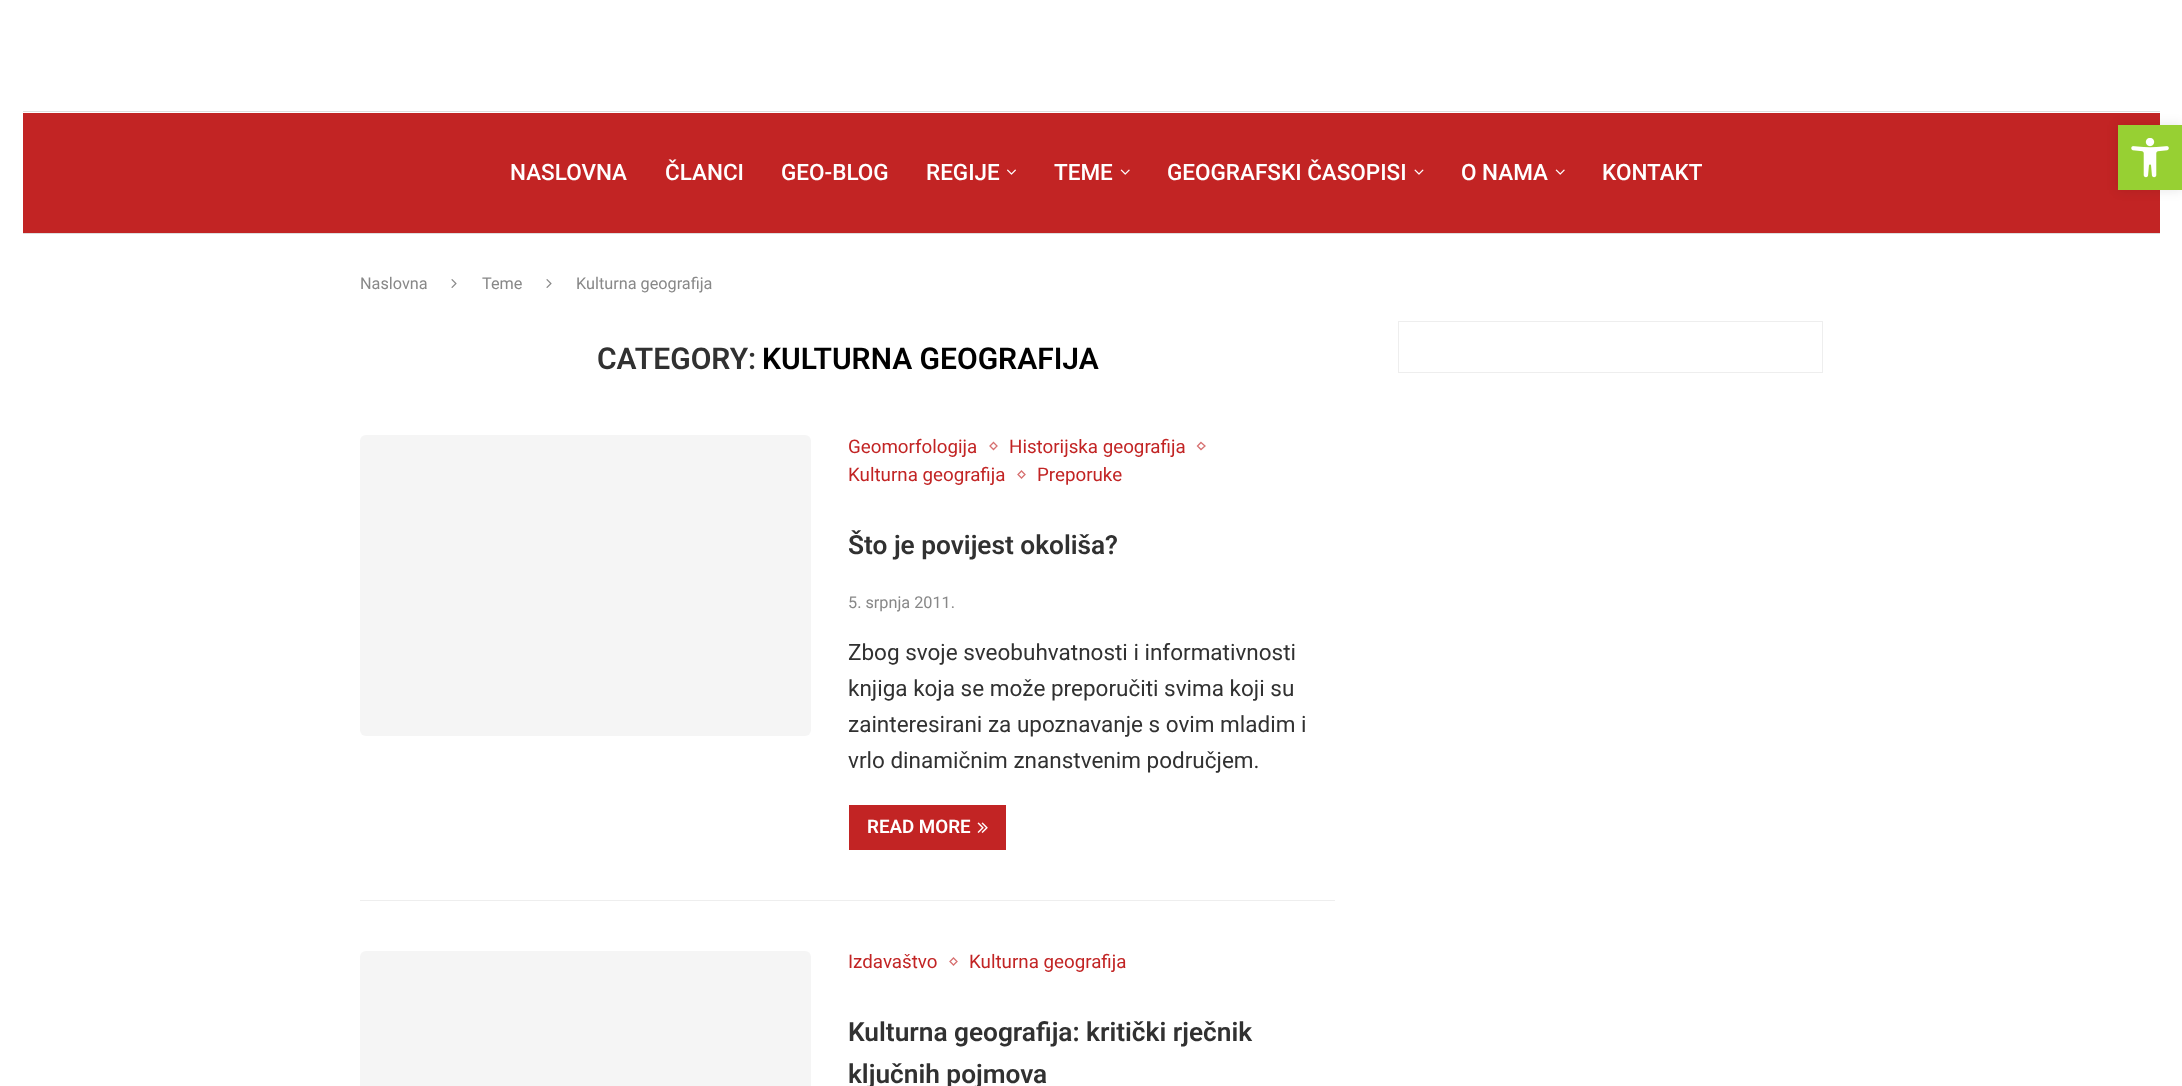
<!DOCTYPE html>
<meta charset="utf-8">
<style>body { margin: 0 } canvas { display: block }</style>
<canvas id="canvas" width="2182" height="1086"></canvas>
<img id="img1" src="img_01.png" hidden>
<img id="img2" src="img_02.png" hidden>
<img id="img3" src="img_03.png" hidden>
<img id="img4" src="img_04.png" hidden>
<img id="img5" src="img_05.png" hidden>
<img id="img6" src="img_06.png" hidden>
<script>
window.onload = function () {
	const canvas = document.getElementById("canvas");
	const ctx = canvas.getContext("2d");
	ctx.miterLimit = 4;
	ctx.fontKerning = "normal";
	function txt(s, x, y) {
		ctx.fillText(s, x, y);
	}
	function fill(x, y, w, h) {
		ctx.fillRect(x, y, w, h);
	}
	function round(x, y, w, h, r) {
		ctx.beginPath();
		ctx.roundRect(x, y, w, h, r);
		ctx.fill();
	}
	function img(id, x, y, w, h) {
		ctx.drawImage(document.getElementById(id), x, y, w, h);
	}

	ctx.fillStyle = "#FFFFFF";
	fill(0, 0, 2182, 1086);
	ctx.fillStyle = "#C22424";
	fill(23, 113, 2137, 120);
	ctx.fillStyle = "#DEDEDE";
	fill(23, 111, 2137, 1);
	fill(23, 233, 2137, 1);
	img("img1", 1007, 169, 9, 6);
	img("img2", 1120, 169, 10, 6);
	img("img3", 1414, 169, 10, 6);
	img("img2", 1555, 169, 10, 6);
	img("img4", 451, 279, 6, 9);
	img("img4", 546, 279, 6, 9);
	ctx.fillStyle = "#EEEEEE";
	fill(360, 900, 975, 1);
	ctx.fillStyle = "#F5F5F5";
	round(360, 435, 451, 301, 6);
	ctx.beginPath();
	ctx.moveTo(993.5, 442.5);
	ctx.lineTo(997, 446);
	ctx.lineTo(993.5, 449.5);
	ctx.lineTo(990, 446);
	ctx.closePath();
	ctx.strokeStyle = "#D77171";
	ctx.lineWidth = 1.3;
	ctx.stroke();
	ctx.beginPath();
	ctx.moveTo(1201, 442.5);
	ctx.lineTo(1205, 446);
	ctx.lineTo(1201, 449.5);
	ctx.lineTo(1197.5, 446);
	ctx.closePath();
	ctx.stroke();
	ctx.beginPath();
	ctx.moveTo(1021.5, 471);
	ctx.lineTo(1025, 474.5);
	ctx.lineTo(1021.5, 478);
	ctx.lineTo(1018, 474.5);
	ctx.closePath();
	ctx.stroke();
	ctx.fillStyle = "#C22424";
	fill(849, 805, 157, 45);
	img("img5", 977, 822, 11, 11);
	ctx.fillStyle = "#F5F5F5";
	round(360, 951, 451, 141, 6);
	ctx.beginPath();
	ctx.moveTo(953.5, 958);
	ctx.lineTo(957, 961.5);
	ctx.lineTo(953.5, 965);
	ctx.lineTo(950, 961.5);
	ctx.closePath();
	ctx.stroke();
	ctx.strokeStyle = "#EEEEEE";
	ctx.lineWidth = 1;
	ctx.strokeRect(1398.5, 321.5, 424, 51);
	ctx.fillStyle = "rgba(0, 0, 0, 0.1)";
	ctx.filter = "blur(6px)";
	ctx.beginPath();
	ctx.rect(2118, 125, 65, 65);
	ctx.fill();
	ctx.filter = "none";
	ctx.fillStyle = "#97D033";
	fill(2118, 125, 64, 65);
	img("img6", 2131, 138, 38, 40);
	ctx.font = "500 22.5px Roboto";
	ctx.fillStyle = "#FFFFFF";
	txt("NASLOVNA", 510, 180);
	txt("ČLANCI", 665, 180);
	txt("GEO-BLOG", 781, 180);
	txt("REGIJE", 926, 180);
	txt("TEME", 1054, 180);
	txt("GEOGRAFSKI ČASOPISI", 1167, 180);
	txt("O NAMA", 1461, 180);
	txt("KONTAKT", 1602, 180);
	ctx.font = "16.25px Roboto";
	ctx.fillStyle = "#888888";
	txt("Naslovna", 360, 289);
	txt("Teme", 482, 289);
	txt("Kulturna geografija", 576, 289);
	ctx.font = "600 30px Roboto";
	ctx.fillStyle = "#313131";
	txt("CATEGORY:", 597, 369);
	ctx.fillStyle = "#000000";
	txt("KULTURNA GEOGRAFIJA", 762, 369);
	ctx.font = "18.75px Roboto";
	ctx.fillStyle = "#C22424";
	txt("Geomorfologija", 848, 453);
	txt("Historijska geografija", 1009, 453);
	txt("Kulturna geografija", 848, 481);
	txt("Preporuke", 1037, 481);
	ctx.font = "600 26.25px Roboto";
	ctx.fillStyle = "#313131";
	txt("Što je povijest okoliša?", 848, 554);
	ctx.font = "16.25px Roboto";
	ctx.fillStyle = "#888888";
	txt("5. srpnja 2011.", 848, 608);
	ctx.font = "22.5px Roboto";
	ctx.fillStyle = "#313131";
	txt("Zbog svoje sveobuhvatnosti i informativnosti", 848, 660);
	txt("knjiga koja se može preporučiti svima koji su", 848, 696);
	txt("zainteresirani za upoznavanje s ovim mladim i", 848, 732);
	txt("vrlo dinamičnim znanstvenim područjem.", 848, 768);
	ctx.font = "600 18.75px Roboto";
	ctx.fillStyle = "#FFFFFF";
	txt("READ MORE", 867, 833);
	ctx.font = "18.75px Roboto";
	ctx.fillStyle = "#C22424";
	txt("Izdavaštvo", 848, 968);
	txt("Kulturna geografija", 969, 968);
	ctx.font = "600 26.25px Roboto";
	ctx.fillStyle = "#313131";
	txt("Kulturna geografija: kritički rječnik", 848, 1041);
	txt("ključnih pojmova", 848, 1083);
};
</script>
